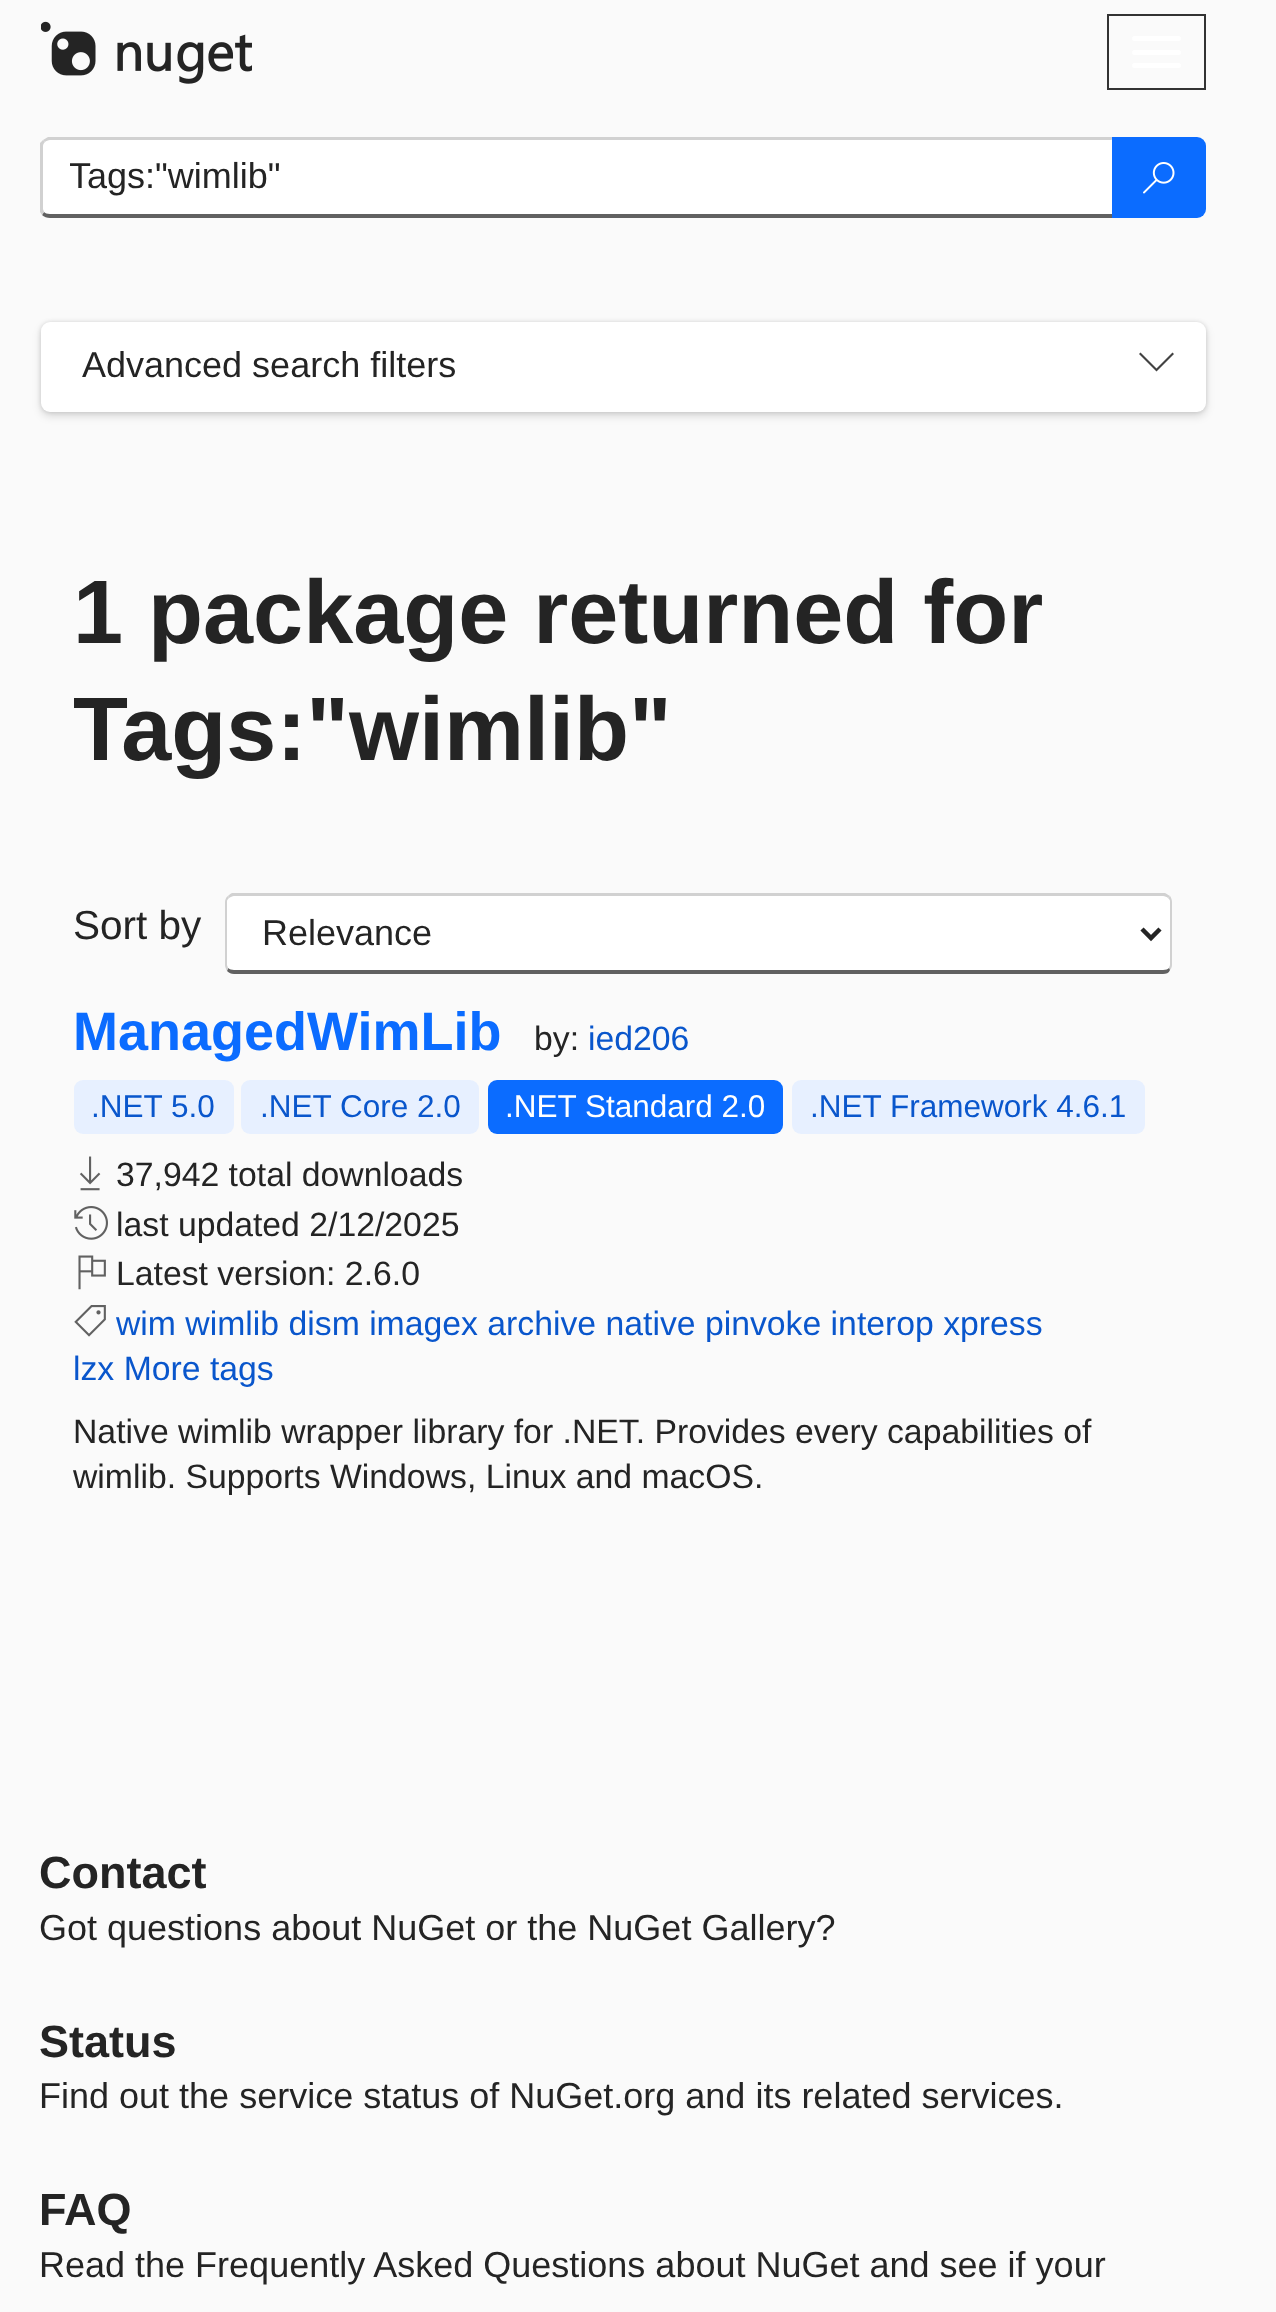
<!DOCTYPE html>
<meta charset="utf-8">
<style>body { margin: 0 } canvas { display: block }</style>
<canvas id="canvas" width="1276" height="2312"></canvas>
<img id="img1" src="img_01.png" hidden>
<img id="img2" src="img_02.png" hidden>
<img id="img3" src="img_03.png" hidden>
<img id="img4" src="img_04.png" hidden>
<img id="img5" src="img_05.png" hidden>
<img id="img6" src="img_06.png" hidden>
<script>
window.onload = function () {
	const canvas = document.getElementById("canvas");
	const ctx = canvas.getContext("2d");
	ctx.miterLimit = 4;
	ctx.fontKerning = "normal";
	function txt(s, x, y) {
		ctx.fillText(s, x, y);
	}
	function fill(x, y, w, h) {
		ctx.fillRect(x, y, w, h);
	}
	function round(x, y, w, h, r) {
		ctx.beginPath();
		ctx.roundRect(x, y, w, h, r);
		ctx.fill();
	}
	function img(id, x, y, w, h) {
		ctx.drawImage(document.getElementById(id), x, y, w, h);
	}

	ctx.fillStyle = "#FAFAFA";
	fill(0, 0, 1276, 2312);
	img("img1", 41, 21, 211, 63);
	ctx.strokeStyle = "#333333";
	ctx.lineWidth = 2;
	ctx.strokeRect(1108, 15, 97, 74);
	ctx.fillStyle = "#FFFFFF";
	round(1132, 36, 49, 5, 2.5);
	round(1132, 50, 49, 5, 2.5);
	round(1132, 63, 49, 5, 2.5);
	ctx.beginPath();
	ctx.moveTo(50, 140);
	ctx.lineTo(1112, 140);
	ctx.lineTo(1112, 214);
	ctx.lineTo(50, 214);
	ctx.bezierCurveTo(46, 214, 43, 212, 43, 209);
	ctx.lineTo(43, 146);
	ctx.bezierCurveTo(43, 143, 46, 140, 50, 140);
	ctx.closePath();
	ctx.fill();
	ctx.fillStyle = "#D1D1D1";
	ctx.beginPath();
	ctx.moveTo(50, 140);
	ctx.bezierCurveTo(48, 140, 46, 141, 45, 142);
	ctx.lineTo(43, 140);
	ctx.lineTo(48, 137);
	ctx.lineTo(1114, 137);
	ctx.lineTo(1111, 140);
	ctx.closePath();
	ctx.fill();
	ctx.beginPath();
	ctx.moveTo(1114, 137);
	ctx.lineTo(1114, 218);
	ctx.lineTo(1112, 214);
	ctx.lineTo(1112, 140);
	ctx.lineTo(1111, 140);
	ctx.closePath();
	ctx.fill();
	ctx.fillStyle = "#616161";
	ctx.beginPath();
	ctx.moveTo(1114, 218);
	ctx.lineTo(50, 218);
	ctx.bezierCurveTo(47, 218, 44, 217, 42, 215);
	ctx.lineTo(44, 212);
	ctx.bezierCurveTo(45, 213, 47, 214, 50, 214);
	ctx.lineTo(1112, 214);
	ctx.closePath();
	ctx.fill();
	ctx.fillStyle = "#D1D1D1";
	ctx.beginPath();
	ctx.moveTo(40, 143);
	ctx.lineTo(43, 140);
	ctx.lineTo(45, 142);
	ctx.bezierCurveTo(44, 143, 43, 144, 43, 146);
	ctx.lineTo(43, 209);
	ctx.lineTo(44, 212);
	ctx.lineTo(42, 215);
	ctx.lineTo(40, 212);
	ctx.closePath();
	ctx.fill();
	ctx.fillStyle = "#0B6CFF";
	ctx.beginPath();
	ctx.roundRect(1112, 137, 94, 81, [0, 9, 9, 0]);
	ctx.fill();
	img("img2", 1143, 162, 32, 32);
	ctx.fillStyle = "rgba(0, 0, 0, 0.14)";
	ctx.filter = "blur(4.5px)";
	ctx.beginPath();
	ctx.roundRect(41, 326, 1165, 90, 9);
	ctx.fill();
	ctx.filter = "none";
	ctx.fillStyle = "rgba(0, 0, 0, 0.12)";
	ctx.filter = "blur(2px)";
	ctx.beginPath();
	ctx.roundRect(41, 322, 1165, 90, 9);
	ctx.fill();
	ctx.filter = "none";
	ctx.fillStyle = "#FFFFFF";
	round(41, 322, 1165, 90, 9);
	ctx.fillStyle = "#424242";
	ctx.beginPath();
	ctx.moveTo(1172.5, 352.5);
	ctx.lineTo(1174, 354);
	ctx.lineTo(1156.5, 371.5);
	ctx.lineTo(1139, 354);
	ctx.lineTo(1140.5, 352.5);
	ctx.lineTo(1156.5, 368.5);
	ctx.closePath();
	ctx.fill();
	ctx.fillStyle = "#FFFFFF";
	ctx.beginPath();
	ctx.moveTo(234, 896);
	ctx.lineTo(1163, 896);
	ctx.bezierCurveTo(1167, 896, 1170, 899, 1170, 902);
	ctx.lineTo(1170, 965);
	ctx.bezierCurveTo(1170, 968, 1167, 970, 1163, 970);
	ctx.lineTo(234, 970);
	ctx.bezierCurveTo(230, 970, 227, 968, 227, 965);
	ctx.lineTo(227, 902);
	ctx.bezierCurveTo(227, 899, 230, 896, 234, 896);
	ctx.closePath();
	ctx.fill();
	ctx.fillStyle = "#D1D1D1";
	ctx.beginPath();
	ctx.moveTo(234, 896);
	ctx.bezierCurveTo(232, 896, 231, 897, 229, 898);
	ctx.lineTo(228, 896);
	ctx.bezierCurveTo(229, 895, 230, 894, 232, 893);
	ctx.lineTo(1165, 893);
	ctx.bezierCurveTo(1167, 894, 1168, 895, 1170, 896);
	ctx.lineTo(1168, 898);
	ctx.bezierCurveTo(1167, 897, 1165, 896, 1163, 896);
	ctx.closePath();
	ctx.fill();
	ctx.beginPath();
	ctx.moveTo(1170, 896);
	ctx.bezierCurveTo(1171, 897, 1172, 900, 1172, 902);
	ctx.lineTo(1172, 965);
	ctx.bezierCurveTo(1172, 967, 1171, 969, 1170, 970);
	ctx.lineTo(1169, 968);
	ctx.lineTo(1170, 965);
	ctx.lineTo(1170, 901);
	ctx.bezierCurveTo(1170, 900, 1169, 899, 1168, 898);
	ctx.closePath();
	ctx.fill();
	ctx.fillStyle = "#616161";
	ctx.beginPath();
	ctx.moveTo(1170, 970);
	ctx.bezierCurveTo(1169, 973, 1166, 974, 1163, 974);
	ctx.lineTo(234, 974);
	ctx.bezierCurveTo(231, 974, 229, 973, 227, 971);
	ctx.lineTo(228, 968);
	ctx.bezierCurveTo(229, 969, 232, 970, 234, 970);
	ctx.lineTo(1163, 970);
	ctx.bezierCurveTo(1166, 970, 1168, 969, 1169, 968);
	ctx.closePath();
	ctx.fill();
	ctx.fillStyle = "#D1D1D1";
	ctx.beginPath();
	ctx.moveTo(225, 902);
	ctx.lineTo(225, 965);
	ctx.bezierCurveTo(225, 967, 226, 969, 227, 971);
	ctx.lineTo(228, 968);
	ctx.lineTo(227, 965);
	ctx.lineTo(227, 901);
	ctx.bezierCurveTo(227, 900, 228, 899, 229, 898);
	ctx.lineTo(228, 896);
	ctx.bezierCurveTo(226, 897, 225, 900, 225, 902);
	ctx.closePath();
	ctx.fill();
	ctx.beginPath();
	ctx.moveTo(1142, 929);
	ctx.lineTo(1151, 938);
	ctx.lineTo(1160, 929);
	ctx.strokeStyle = "#242424";
	ctx.lineWidth = 4.5;
	ctx.stroke();
	ctx.fillStyle = "#E7F0FF";
	round(74, 1080, 160, 54, 9);
	round(241, 1080, 238, 54, 9);
	ctx.fillStyle = "#0B6CFF";
	round(488, 1080, 295, 54, 9);
	ctx.fillStyle = "#E7F0FF";
	round(792, 1080, 353, 54, 9);
	img("img3", 79, 1156, 22, 35);
	img("img4", 74, 1206, 34, 34);
	img("img5", 78, 1255, 28, 35);
	img("img6", 74, 1305, 32, 32);
	ctx.save();
	ctx.beginPath();
	ctx.rect(70, 158, 1015, 40);
	ctx.clip();
	ctx.font = "36px Liberation Sans";
	ctx.fillStyle = "#242424";
	txt("Tags:\"wimlib\"", 69, 188);
	ctx.restore();
	ctx.font = "36px Liberation Sans";
	ctx.fillStyle = "#242424";
	txt("Advanced search filters", 82, 377);
	ctx.font = "bold 90px Liberation Sans";
	txt("1 package returned for", 73, 643);
	txt("Tags:\"wimlib\"", 73, 760);
	ctx.font = "40.5px Liberation Sans";
	txt("Sort by", 73, 939);
	ctx.font = "36px Liberation Sans";
	txt("Relevance", 262, 945);
	ctx.font = "bold 54px Liberation Sans";
	ctx.fillStyle = "#0B6CFF";
	txt("ManagedWimLib", 73, 1050);
	ctx.font = "33.75px Liberation Sans";
	ctx.fillStyle = "#242424";
	txt("by:", 534, 1050);
	ctx.fillStyle = "#0956CC";
	txt("ied206", 588, 1050);
	ctx.font = "31.5px Liberation Sans";
	txt(".NET 5.0", 91, 1117);
	txt(".NET Core 2.0", 260, 1117);
	ctx.fillStyle = "#FFFFFF";
	txt(".NET Standard 2.0", 505, 1117);
	ctx.fillStyle = "#0956CC";
	txt(".NET Framework 4.6.1", 810, 1117);
	ctx.font = "33.75px Liberation Sans";
	ctx.fillStyle = "#242424";
	txt("37,942 total downloads", 116, 1186);
	txt("last updated 2/12/2025", 116, 1236);
	txt("Latest version: 2.6.0", 116, 1285);
	ctx.fillStyle = "#0956CC";
	txt("wim wimlib dism imagex archive native pinvoke interop xpress", 116, 1335);
	txt("lzx More tags", 73, 1380);
	ctx.fillStyle = "#242424";
	txt("Native wimlib wrapper library for .NET. Provides every capabilities of", 73, 1443);
	txt("wimlib. Supports Windows, Linux and macOS.", 73, 1488);
	ctx.font = "bold 45px Liberation Sans";
	txt("Contact", 39, 1888);
	ctx.font = "36px Liberation Sans";
	txt("Got questions about NuGet or the NuGet Gallery?", 39, 1940);
	ctx.font = "bold 45px Liberation Sans";
	txt("Status", 39, 2057);
	ctx.font = "36px Liberation Sans";
	txt("Find out the service status of NuGet.org and its related services.", 39, 2108);
	ctx.font = "bold 45px Liberation Sans";
	txt("FAQ", 39, 2225);
	ctx.font = "36px Liberation Sans";
	txt("Read the Frequently Asked Questions about NuGet and see if your", 39, 2277);
};
</script>
